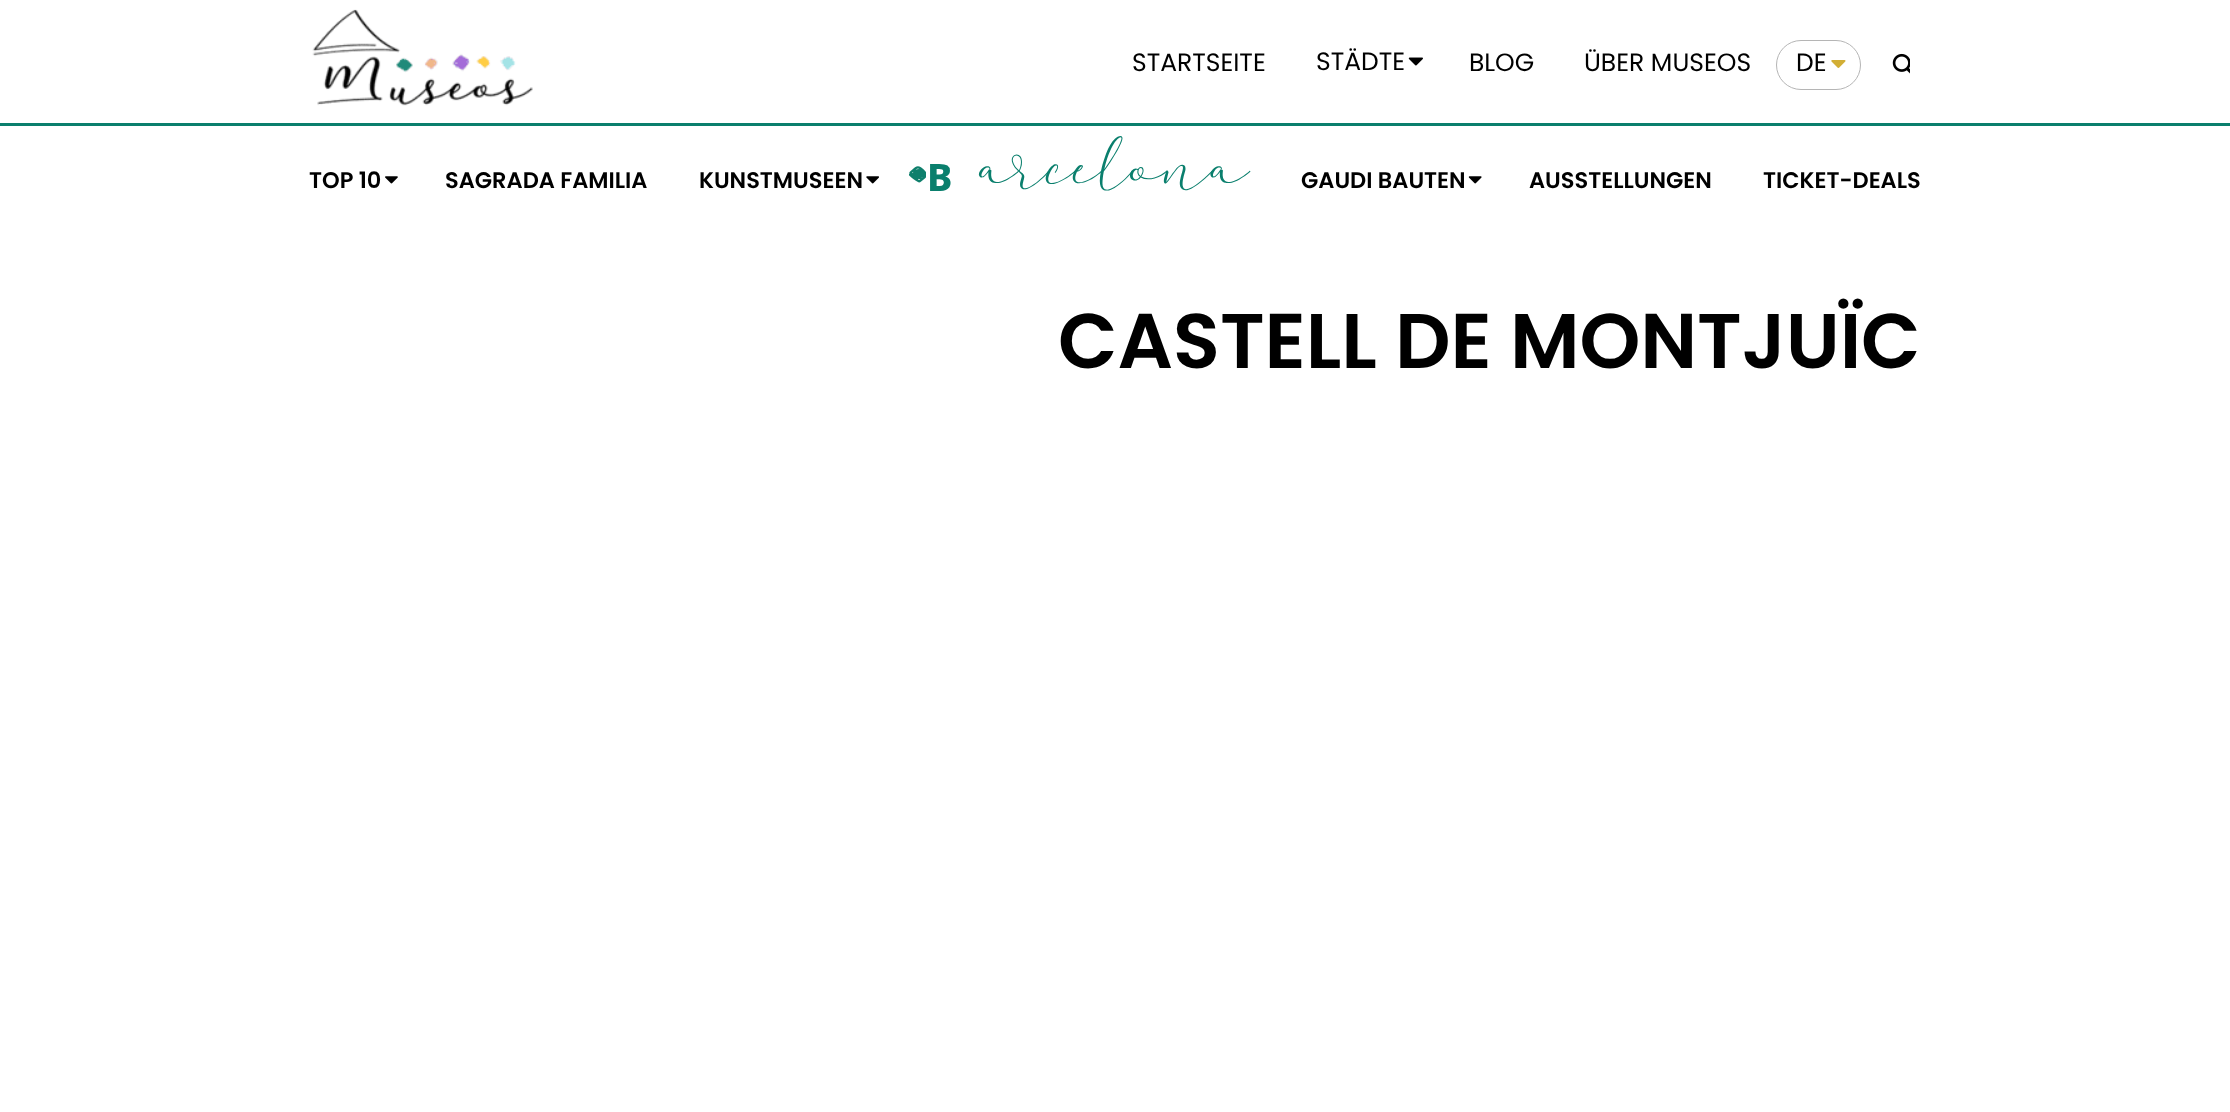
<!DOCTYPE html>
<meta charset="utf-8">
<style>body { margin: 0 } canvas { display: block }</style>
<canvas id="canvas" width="2230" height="1112"></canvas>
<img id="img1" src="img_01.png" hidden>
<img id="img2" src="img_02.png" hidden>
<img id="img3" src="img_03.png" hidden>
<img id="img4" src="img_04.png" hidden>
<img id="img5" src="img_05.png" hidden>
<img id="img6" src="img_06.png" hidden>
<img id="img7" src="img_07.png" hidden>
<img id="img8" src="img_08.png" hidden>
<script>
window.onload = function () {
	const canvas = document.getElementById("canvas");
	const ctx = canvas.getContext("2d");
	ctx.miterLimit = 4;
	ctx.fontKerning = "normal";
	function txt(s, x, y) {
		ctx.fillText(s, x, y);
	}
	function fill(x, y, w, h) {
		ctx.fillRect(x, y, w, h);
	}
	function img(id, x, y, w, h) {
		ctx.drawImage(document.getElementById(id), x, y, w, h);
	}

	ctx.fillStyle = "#FFFFFF";
	fill(0, 0, 2230, 1112);
	img("img1", 312, 9, 221, 97);
	img("img2", 1408, 57, 15, 9);
	ctx.beginPath();
	ctx.roundRect(1776.5, 40.5, 84, 49, 24.5);
	ctx.strokeStyle = "#B5B5B5";
	ctx.stroke();
	img("img3", 1831, 60, 15, 8);
	img("img4", 1892, 53, 18, 21);
	ctx.fillStyle = "#0A7F6D";
	fill(0, 123, 2230, 3);
	img("img5", 385, 176, 13, 8);
	img("img6", 866, 176, 13, 8);
	img("img7", 909, 166, 17, 17);
	img("img8", 1468, 176, 14, 8);
	ctx.font = "25px Poppins";
	ctx.fillStyle = "#000000";
	txt("STARTSEITE", 1132, 71);
	txt("STÄDTE", 1316, 70);
	txt("BLOG", 1469, 71);
	txt("ÜBER MUSEOS", 1584, 71);
	txt("DE", 1796, 71);
	ctx.font = "600 22.5px Poppins";
	txt("TOP 10", 309, 188);
	txt("SAGRADA FAMILIA", 445, 188);
	txt("KUNSTMUSEEN", 699, 188);
	ctx.font = "800 38px Noto Sans";
	ctx.fillStyle = "#0A7F6D";
	txt("B", 927, 191);
	ctx.font = "50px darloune";
	txt("ARCELONA", 980, 191);
	ctx.font = "600 22.5px Poppins";
	ctx.fillStyle = "#000000";
	txt("GAUDI BAUTEN", 1301, 188);
	txt("AUSSTELLUNGEN", 1529, 188);
	txt("TICKET-DEALS", 1763, 188);
	ctx.letterSpacing = "-0.1px";
	ctx.font = "600 77.5px Poppins";
	txt("CASTELL DE MONTJUÏC", 1058, 368);
};
</script>
